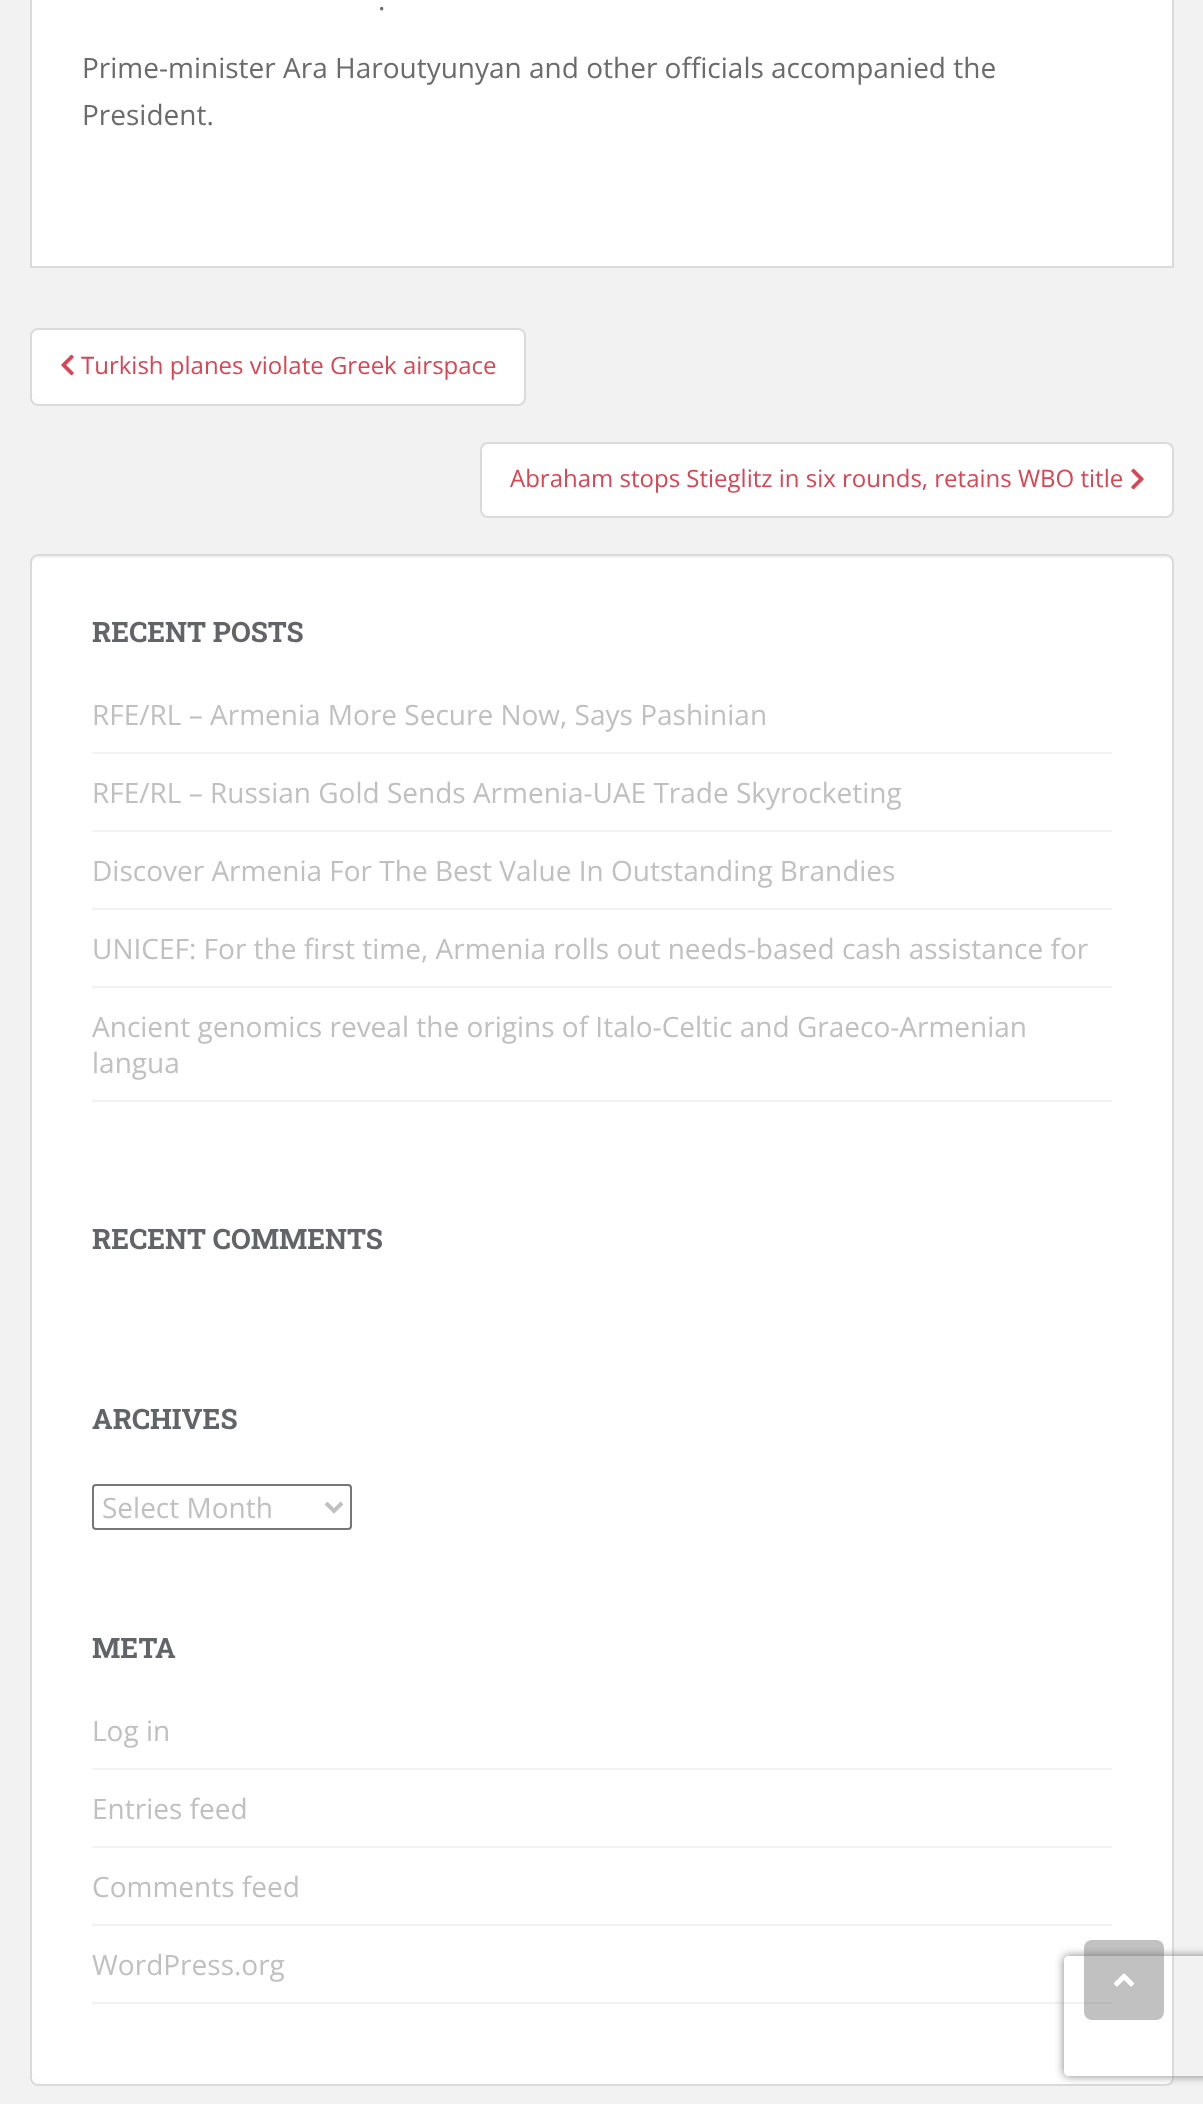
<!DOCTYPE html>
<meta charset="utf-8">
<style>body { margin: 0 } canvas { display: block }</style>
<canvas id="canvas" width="1203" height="2104"></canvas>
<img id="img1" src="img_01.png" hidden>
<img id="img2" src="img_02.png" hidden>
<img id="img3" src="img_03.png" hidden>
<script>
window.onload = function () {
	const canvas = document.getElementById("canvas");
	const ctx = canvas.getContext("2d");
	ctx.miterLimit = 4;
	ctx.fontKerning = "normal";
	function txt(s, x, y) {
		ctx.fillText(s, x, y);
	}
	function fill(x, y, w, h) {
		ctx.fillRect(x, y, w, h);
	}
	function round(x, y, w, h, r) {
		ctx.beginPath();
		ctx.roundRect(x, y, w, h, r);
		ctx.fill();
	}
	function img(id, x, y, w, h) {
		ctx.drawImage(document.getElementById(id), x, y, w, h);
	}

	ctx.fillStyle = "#F2F2F2";
	fill(0, 0, 1203, 2104);
	ctx.fillStyle = "#FFFFFF";
	ctx.beginPath();
	ctx.rect(31, -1, 1142, 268);
	ctx.fill();
	ctx.strokeStyle = "#DADADA";
	ctx.lineWidth = 2;
	ctx.stroke();
	ctx.beginPath();
	ctx.roundRect(31, 329, 494, 76, 7);
	ctx.fill();
	ctx.stroke();
	img("img1", 61, 354, 13, 22);
	ctx.beginPath();
	ctx.roundRect(481, 443, 692, 74, 7);
	ctx.fill();
	ctx.stroke();
	img("img2", 1131, 468, 13, 22);
	round(30, 554, 1144, 1532, 8);
	ctx.fillStyle = "#F2F2F2";
	ctx.beginPath();
	ctx.moveTo(38, 558);
	ctx.lineTo(1166, 558);
	ctx.bezierCurveTo(1169, 558, 1172, 561, 1172, 564);
	ctx.lineTo(1172, 562);
	ctx.bezierCurveTo(1172, 559, 1169, 556, 1166, 556);
	ctx.lineTo(38, 556);
	ctx.bezierCurveTo(35, 556, 32, 559, 32, 562);
	ctx.lineTo(32, 564);
	ctx.bezierCurveTo(32, 561, 35, 558, 38, 558);
	ctx.closePath();
	ctx.fill();
	ctx.beginPath();
	ctx.roundRect(31, 555, 1142, 1530, 7);
	ctx.stroke();
	fill(92, 752, 1020, 2);
	fill(92, 830, 1020, 2);
	fill(92, 908, 1020, 2);
	fill(92, 986, 1020, 2);
	fill(92, 1100, 1020, 2);
	ctx.beginPath();
	ctx.roundRect(93, 1485, 258, 44, 3);
	ctx.strokeStyle = "#767676";
	ctx.stroke();
	ctx.beginPath();
	ctx.moveTo(326, 1503);
	ctx.lineTo(334, 1511);
	ctx.lineTo(342, 1503);
	ctx.strokeStyle = "#C1C0C0";
	ctx.lineWidth = 4;
	ctx.stroke();
	fill(92, 1768, 1020, 2);
	fill(92, 1846, 1020, 2);
	fill(92, 1924, 1020, 2);
	fill(92, 2002, 1020, 2);
	ctx.save();
	ctx.beginPath();
	ctx.moveTo(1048, 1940);
	ctx.lineTo(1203, 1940);
	ctx.lineTo(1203, 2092);
	ctx.lineTo(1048, 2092);
	ctx.closePath();
	ctx.moveTo(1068, 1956);
	ctx.lineTo(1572, 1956);
	ctx.bezierCurveTo(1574, 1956, 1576, 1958, 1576, 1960);
	ctx.lineTo(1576, 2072);
	ctx.bezierCurveTo(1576, 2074, 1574, 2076, 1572, 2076);
	ctx.lineTo(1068, 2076);
	ctx.bezierCurveTo(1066, 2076, 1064, 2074, 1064, 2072);
	ctx.lineTo(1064, 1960);
	ctx.bezierCurveTo(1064, 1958, 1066, 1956, 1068, 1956);
	ctx.closePath();
	ctx.clip("evenodd");
	ctx.fillStyle = "#808080";
	ctx.filter = "blur(5px)";
	ctx.beginPath();
	ctx.roundRect(1064, 1956, 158, 120, 4);
	ctx.fill();
	ctx.filter = "none";
	ctx.restore();
	ctx.fillStyle = "rgba(100, 100, 100, 0.4)";
	round(1084, 1940, 80, 80, 8);
	img("img3", 1114, 1973, 20, 14);
	ctx.font = "28px Open Sans";
	ctx.fillStyle = "#6B6B6B";
	txt(".", 378, 10);
	txt("Prime-minister Ara Haroutyunyan and other officials accompanied the", 82, 78);
	txt("President.", 82, 125);
	ctx.font = "24px Open Sans";
	ctx.fillStyle = "#DA4453";
	txt("Turkish planes violate Greek airspace", 81, 374);
	txt("Abraham stops Stieglitz in six rounds, retains WBO title", 510, 487);
	ctx.font = "bold 28px Roboto Slab";
	ctx.fillStyle = "#636467";
	txt("RECENT POSTS", 92, 642);
	ctx.font = "28px Open Sans";
	ctx.fillStyle = "#C1C0C0";
	txt("RFE/RL – Armenia More Secure Now, Says Pashinian", 92, 725);
	txt("RFE/RL – Russian Gold Sends Armenia-UAE Trade Skyrocketing", 92, 803);
	txt("Discover Armenia For The Best Value In Outstanding Brandies", 92, 881);
	txt("UNICEF: For the first time, Armenia rolls out needs-based cash assistance for", 92, 959);
	txt("Ancient genomics reveal the origins of Italo-Celtic and Graeco-Armenian", 92, 1037);
	txt("langua", 92, 1073);
	ctx.font = "bold 28px Roboto Slab";
	ctx.fillStyle = "#636467";
	txt("RECENT COMMENTS", 92, 1249);
	txt("ARCHIVES", 92, 1429);
	ctx.font = "28px Open Sans";
	ctx.fillStyle = "#C1C0C0";
	txt("Select Month", 102, 1518);
	ctx.font = "bold 28px Roboto Slab";
	ctx.fillStyle = "#636467";
	txt("META", 92, 1658);
	ctx.font = "28px Open Sans";
	ctx.fillStyle = "#C1C0C0";
	txt("Log in", 92, 1741);
	txt("Entries feed", 92, 1819);
	txt("Comments feed", 92, 1897);
	txt("WordPress.org", 92, 1975);
};
</script>
